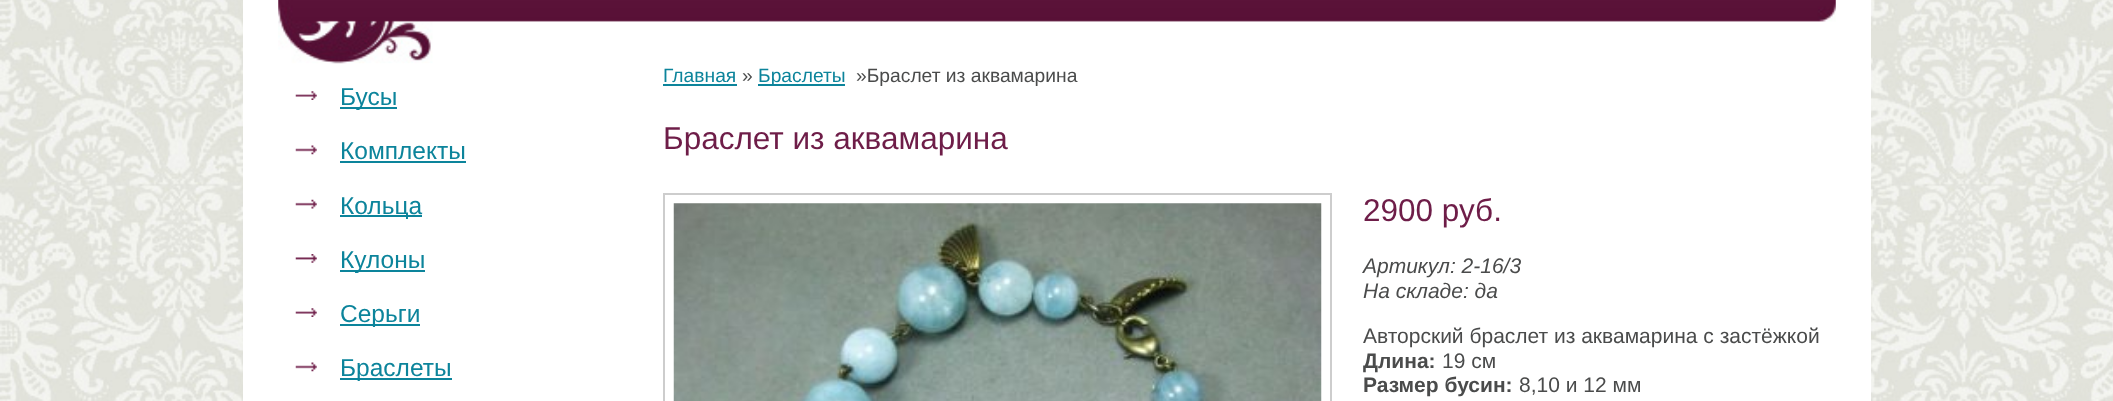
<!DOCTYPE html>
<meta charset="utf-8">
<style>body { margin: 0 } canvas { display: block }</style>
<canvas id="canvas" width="2113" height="401"></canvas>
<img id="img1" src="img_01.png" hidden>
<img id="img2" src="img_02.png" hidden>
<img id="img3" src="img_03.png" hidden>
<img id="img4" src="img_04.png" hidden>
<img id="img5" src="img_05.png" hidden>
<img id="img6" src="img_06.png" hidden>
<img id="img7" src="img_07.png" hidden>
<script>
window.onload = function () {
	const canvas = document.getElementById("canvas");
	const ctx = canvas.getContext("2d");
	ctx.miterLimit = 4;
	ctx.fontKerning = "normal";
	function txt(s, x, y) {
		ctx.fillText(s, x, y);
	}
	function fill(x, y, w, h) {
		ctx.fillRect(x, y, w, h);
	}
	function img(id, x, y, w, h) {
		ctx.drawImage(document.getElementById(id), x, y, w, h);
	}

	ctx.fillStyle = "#FFFFFF";
	fill(0, 0, 2113, 401);
	img("img1", 0, 0, 2113, 401);
	fill(243, 0, 1628, 401);
	img("img2", 278, 0, 1558, 64);
	img("img3", 295, 91, 22, 9);
	ctx.fillStyle = "#0C849B";
	fill(340, 107, 57, 2);
	img("img4", 295, 145, 22, 10);
	fill(340, 161, 126, 2);
	img("img5", 295, 199, 22, 10);
	fill(340, 215, 82, 2);
	img("img6", 295, 254, 22, 9);
	fill(340, 270, 85, 2);
	img("img3", 295, 308, 22, 9);
	fill(340, 324, 80, 2);
	img("img4", 295, 362, 22, 10);
	fill(340, 378, 112, 2);
	fill(663, 84, 74, 2);
	fill(758, 84, 87, 2);
	ctx.strokeStyle = "#CDCDCD";
	ctx.lineWidth = 2;
	ctx.strokeRect(664, 194, 667, 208);
	img("img7", 673, 203, 649, 198);
	ctx.font = "24.5px Liberation Sans";
	txt("Бусы", 340, 105);
	txt("Комплекты", 340, 159);
	txt("Кольца", 340, 214);
	txt("Кулоны", 340, 268);
	txt("Серьги", 340, 322);
	txt("Браслеты", 340, 376);
	ctx.font = "19.25px Liberation Sans";
	txt("Главная", 663, 82);
	ctx.fillStyle = "#4A4B4B";
	txt("»", 742, 82);
	ctx.fillStyle = "#0C849B";
	txt("Браслеты", 758, 82);
	ctx.fillStyle = "#4A4B4B";
	txt("»Браслет из аквамарина", 856, 82);
	ctx.font = "31.5px Liberation Sans";
	ctx.fillStyle = "#6E1D48";
	txt("Браслет из аквамарина", 663, 149);
	txt("2900 руб.", 1363, 221);
	ctx.font = "italic 21px Liberation Sans";
	ctx.fillStyle = "#4A4B4B";
	txt("Артикул: 2-16/3", 1363, 273);
	txt("На складе: да", 1363, 298);
	ctx.font = "21px Liberation Sans";
	txt("Авторский браслет из аквамарина с застёжкой", 1363, 343);
	ctx.font = "bold 21px Liberation Sans";
	txt("Длина:", 1363, 368);
	ctx.font = "21px Liberation Sans";
	txt("19 см", 1442, 368);
	ctx.font = "bold 21px Liberation Sans";
	txt("Размер бусин:", 1363, 392);
	ctx.font = "21px Liberation Sans";
	txt("8,10 и 12 мм", 1519, 392);
};
</script>
